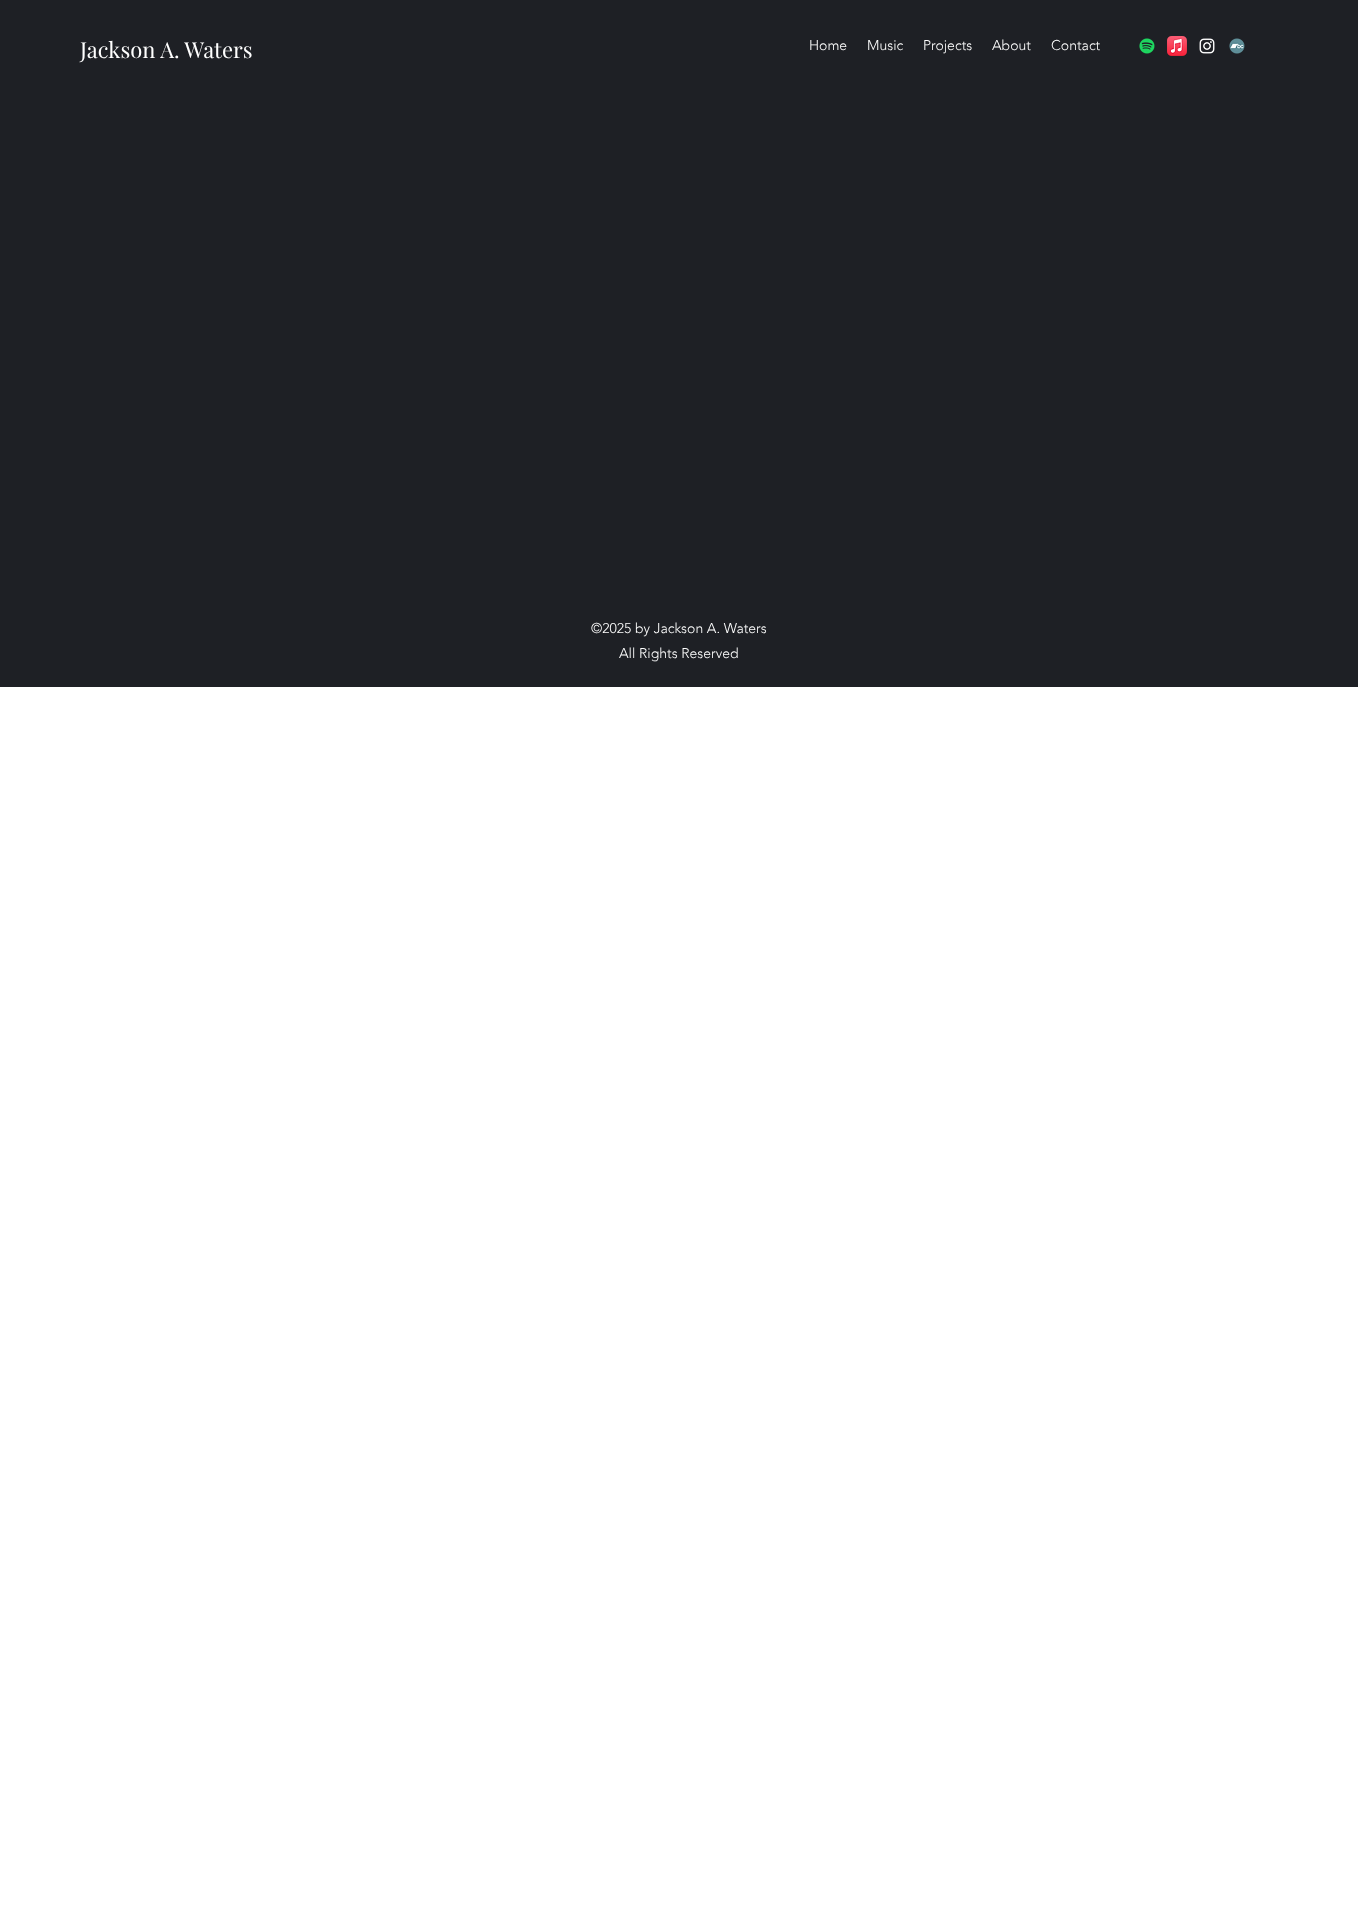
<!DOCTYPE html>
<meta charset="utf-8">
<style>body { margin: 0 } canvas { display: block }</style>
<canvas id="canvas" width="1358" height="1929"></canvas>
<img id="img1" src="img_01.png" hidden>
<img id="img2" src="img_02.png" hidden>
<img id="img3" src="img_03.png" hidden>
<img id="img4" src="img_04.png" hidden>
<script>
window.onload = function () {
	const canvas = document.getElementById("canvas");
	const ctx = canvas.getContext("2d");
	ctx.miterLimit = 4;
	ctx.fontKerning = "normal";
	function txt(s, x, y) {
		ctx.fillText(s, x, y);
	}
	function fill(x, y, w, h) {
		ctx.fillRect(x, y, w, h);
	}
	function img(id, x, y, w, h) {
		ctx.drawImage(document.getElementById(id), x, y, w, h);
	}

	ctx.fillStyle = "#FFFFFF";
	fill(0, 0, 1358, 1929);
	ctx.fillStyle = "#1E2025";
	fill(0, 0, 1358, 687);
	img("img1", 1139, 38, 16, 16);
	img("img2", 1167, 36, 20, 20);
	img("img3", 1199, 38, 16, 16);
	img("img4", 1229, 38, 16, 16);
	ctx.font = "22px Playfair Display";
	ctx.fillStyle = "#FFFFFF";
	txt("Jackson A. Waters", 80, 58);
	ctx.font = "300 14px 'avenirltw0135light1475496'";
	txt("Home", 809, 50);
	txt("Music", 867, 50);
	txt("Projects", 923, 50);
	txt("About", 992, 50);
	txt("Contact", 1051, 50);
	txt("©2025 by Jackson A. Waters", 591, 633);
	txt("All Rights Reserved", 619, 658);
};
</script>
